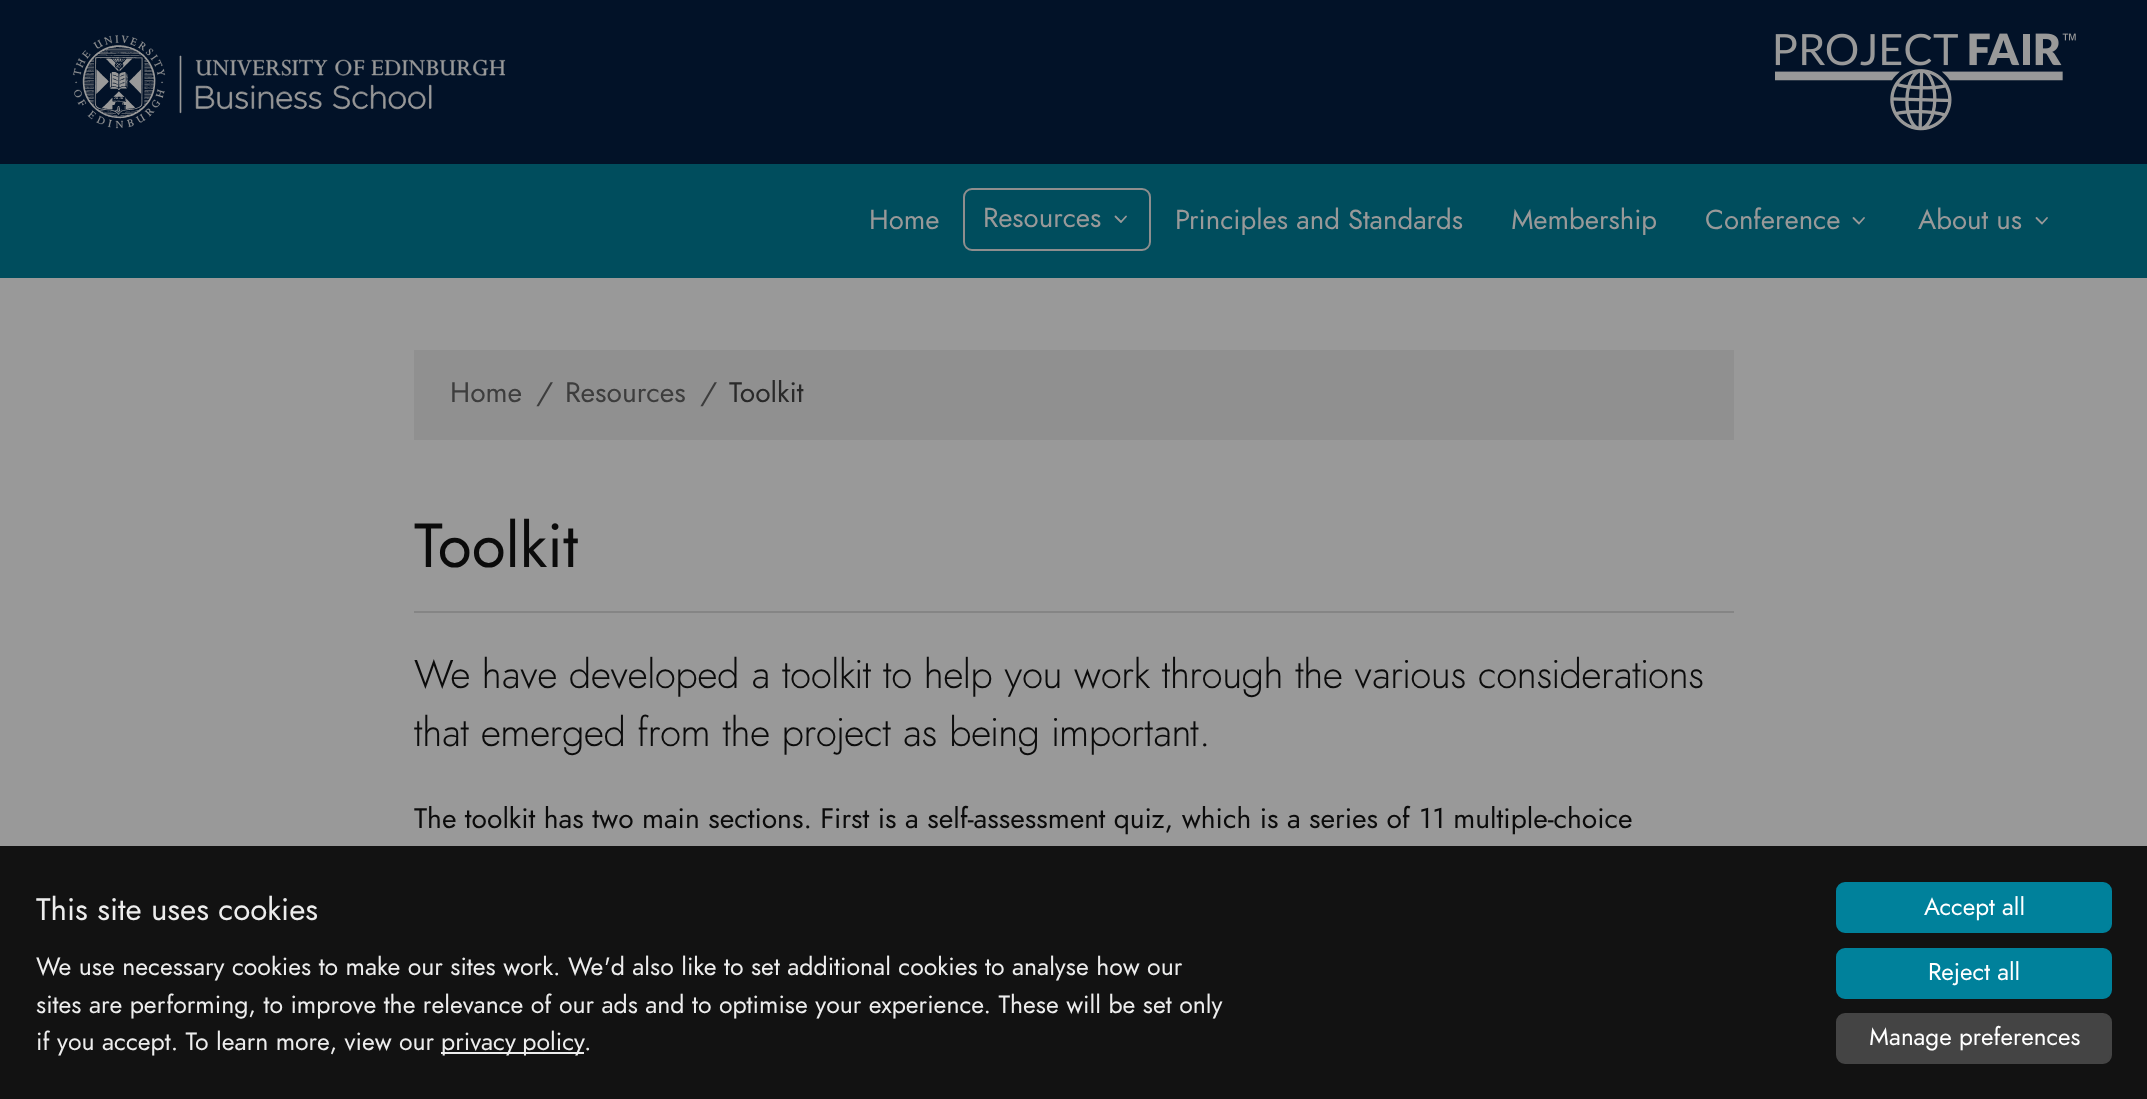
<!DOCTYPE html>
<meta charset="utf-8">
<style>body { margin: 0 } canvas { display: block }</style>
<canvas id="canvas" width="2147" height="1099"></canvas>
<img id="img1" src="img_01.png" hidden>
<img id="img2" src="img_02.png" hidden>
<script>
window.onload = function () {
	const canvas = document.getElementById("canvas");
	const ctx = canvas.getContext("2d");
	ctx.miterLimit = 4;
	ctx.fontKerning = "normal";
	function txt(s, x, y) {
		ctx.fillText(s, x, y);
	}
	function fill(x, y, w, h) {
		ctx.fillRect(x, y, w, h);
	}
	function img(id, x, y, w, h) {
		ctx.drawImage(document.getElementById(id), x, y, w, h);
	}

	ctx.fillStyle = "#999999";
	fill(0, 0, 2147, 1099);
	ctx.fillStyle = "#021228";
	fill(0, 0, 2147, 164);
	img("img1", 72, 35, 434, 94);
	img("img2", 1775, 33, 301, 98);
	ctx.fillStyle = "#004D5D";
	fill(0, 164, 2147, 114);
	ctx.beginPath();
	ctx.roundRect(964, 189, 186, 61, 8);
	ctx.strokeStyle = "#8E8E8E";
	ctx.lineWidth = 2;
	ctx.stroke();
	ctx.beginPath();
	ctx.moveTo(1115.5, 216.5);
	ctx.lineTo(1121, 222);
	ctx.lineTo(1126, 216.5);
	ctx.strokeStyle = "#999999";
	ctx.lineWidth = 1.8;
	ctx.lineCap = "round";
	ctx.lineJoin = "round";
	ctx.stroke();
	ctx.beginPath();
	ctx.moveTo(1853.5, 218);
	ctx.lineTo(1859, 223.5);
	ctx.lineTo(1864, 218);
	ctx.stroke();
	ctx.beginPath();
	ctx.moveTo(2036.5, 218);
	ctx.lineTo(2042, 223.5);
	ctx.lineTo(2047, 218);
	ctx.stroke();
	ctx.fillStyle = "#909090";
	fill(414, 350, 1320, 90);
	ctx.fillStyle = "#858585";
	fill(414, 611, 1320, 2);
	ctx.fillStyle = "#121212";
	fill(0, 846, 2147, 253);
	ctx.fillStyle = "#EDEDED";
	fill(441, 1052, 143, 2);
	ctx.fillStyle = "#00819B";
	ctx.beginPath();
	ctx.roundRect(1837, 883, 274, 49, 8);
	ctx.fill();
	ctx.strokeStyle = "#00819B";
	ctx.lineWidth = 2;
	ctx.lineJoin = "miter";
	ctx.stroke();
	ctx.beginPath();
	ctx.roundRect(1837, 949, 274, 49, 8);
	ctx.fill();
	ctx.stroke();
	ctx.fillStyle = "#444444";
	ctx.beginPath();
	ctx.roundRect(1837, 1014, 274, 49, 8);
	ctx.fill();
	ctx.strokeStyle = "#444444";
	ctx.stroke();
	ctx.font = "27.6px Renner";
	ctx.fillStyle = "#999999";
	txt("Home", 869, 229);
	txt("Resources", 983, 227);
	txt("Principles and Standards", 1175, 229);
	txt("Membership", 1511, 229);
	txt("Conference", 1705, 229);
	txt("About us", 1918, 229);
	ctx.font = "28.2px Renner";
	ctx.fillStyle = "#3D3D3D";
	txt("Home", 450, 402);
	txt("/", 536, 402);
	txt("Resources", 565, 402);
	txt("/", 700, 402);
	ctx.fillStyle = "#292929";
	txt("Toolkit", 729, 402);
	ctx.font = "62px Renner";
	ctx.fillStyle = "#0B0B0B";
	txt("Toolkit", 414, 567);
	ctx.font = "300 40px Renner";
	txt("We have developed a toolkit to help you work through the various considerations", 414, 688);
	txt("that emerged from the project as being important.", 414, 746);
	ctx.font = "28.2px Renner";
	txt("The toolkit has two main sections. First is a self-assessment quiz, which is a series of 11 multiple-choice", 414, 828);
	ctx.font = "31.25px Renner";
	ctx.fillStyle = "#EDEDED";
	txt("This site uses cookies", 36, 920);
	ctx.font = "24.85px Renner";
	txt("We use necessary cookies to make our sites work. We'd also like to set additional cookies to analyse how our", 36, 975);
	txt("sites are performing, to improve the relevance of our ads and to optimise your experience. These will be set only", 36, 1013);
	txt("if you accept. To learn more, view our", 36, 1050);
	ctx.wordSpacing = "-1px";
	txt("privacy policy", 441, 1050);
	ctx.wordSpacing = "0px";
	txt(".", 584, 1050);
	ctx.font = "24.25px Renner";
	ctx.fillStyle = "#FFFFFF";
	txt("Accept all", 1924, 915);
	txt("Reject all", 1928, 980);
	txt("Manage preferences", 1869, 1045);
};
</script>
